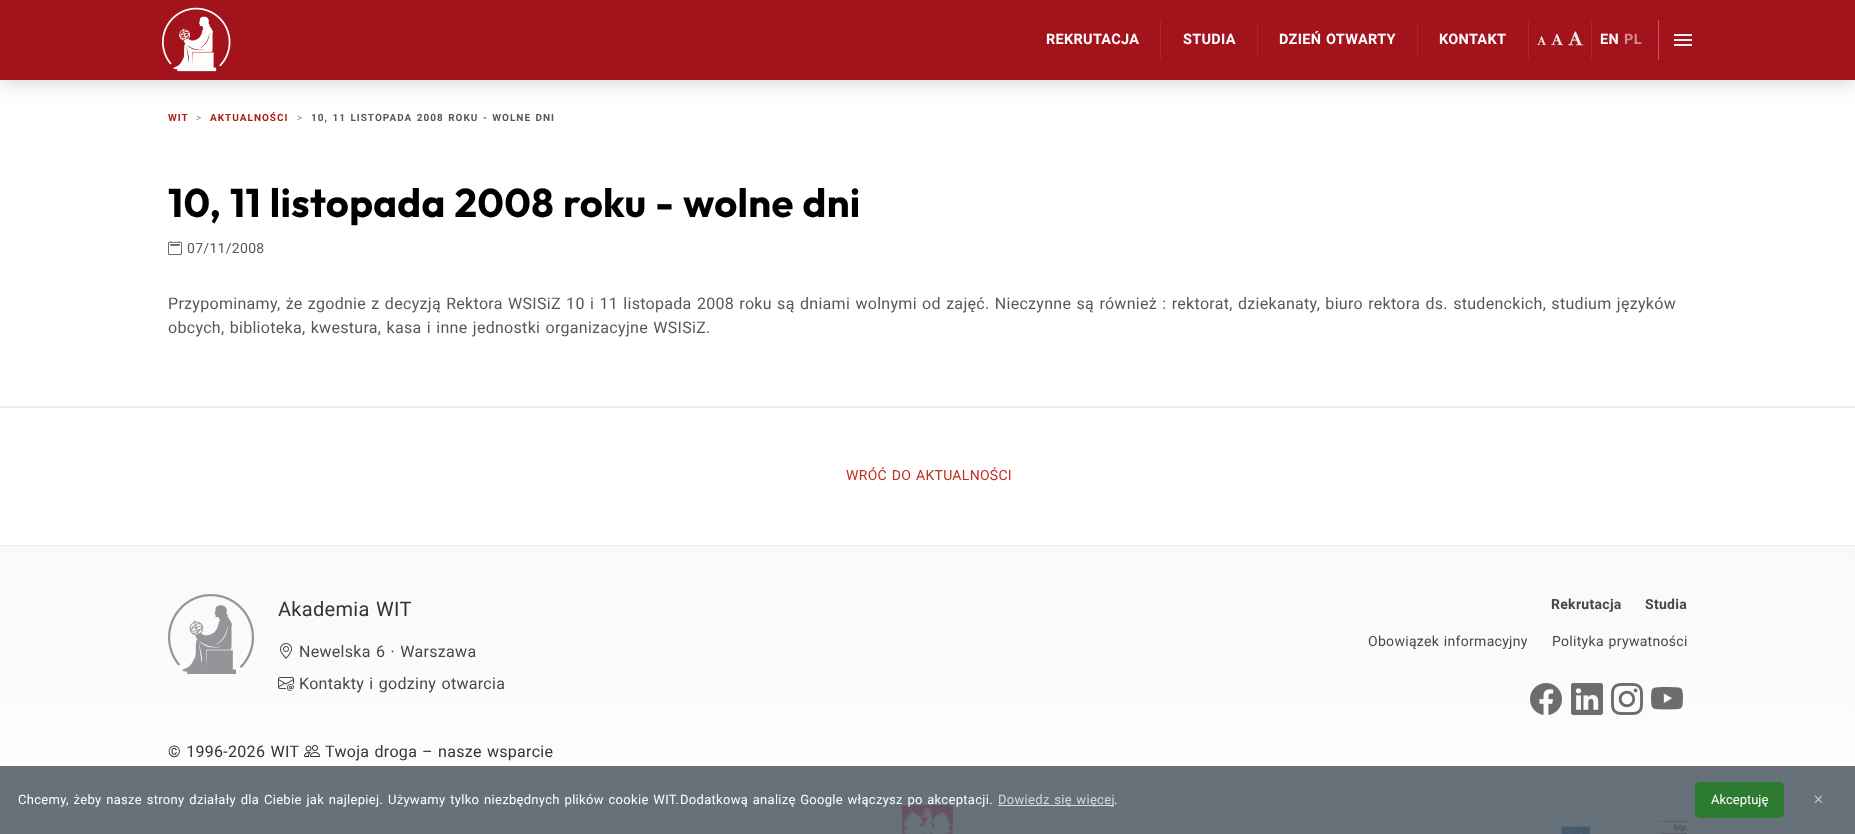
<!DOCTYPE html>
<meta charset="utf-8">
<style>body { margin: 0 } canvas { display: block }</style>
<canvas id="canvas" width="1855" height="834"></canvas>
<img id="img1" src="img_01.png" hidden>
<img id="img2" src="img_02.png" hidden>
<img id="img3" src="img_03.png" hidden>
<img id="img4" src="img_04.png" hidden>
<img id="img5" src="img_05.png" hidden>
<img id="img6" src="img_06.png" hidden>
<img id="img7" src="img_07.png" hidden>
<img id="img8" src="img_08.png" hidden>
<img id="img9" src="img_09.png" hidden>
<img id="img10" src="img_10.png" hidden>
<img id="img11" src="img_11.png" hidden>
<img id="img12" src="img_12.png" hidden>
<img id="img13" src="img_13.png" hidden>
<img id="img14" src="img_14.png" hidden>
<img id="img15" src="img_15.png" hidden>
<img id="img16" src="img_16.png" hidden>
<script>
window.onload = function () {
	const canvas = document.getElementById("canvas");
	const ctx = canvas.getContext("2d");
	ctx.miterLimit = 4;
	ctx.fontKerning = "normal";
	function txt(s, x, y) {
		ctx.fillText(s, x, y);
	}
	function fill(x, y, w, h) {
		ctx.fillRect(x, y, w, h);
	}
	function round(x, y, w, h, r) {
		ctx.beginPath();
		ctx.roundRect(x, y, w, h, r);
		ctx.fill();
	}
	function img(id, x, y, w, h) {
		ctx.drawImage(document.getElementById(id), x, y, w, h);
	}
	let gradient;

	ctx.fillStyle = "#FFFFFF";
	fill(0, 0, 1855, 834);
	ctx.fillStyle = "rgba(45, 45, 45, 0.24)";
	ctx.filter = "blur(10px)";
	ctx.beginPath();
	ctx.rect(0, 1, 1855, 80);
	ctx.fill();
	ctx.filter = "none";
	ctx.fillStyle = "#A2131B";
	fill(0, 0, 1855, 80);
	img("img1", 162, 7, 69, 65);
	ctx.fillStyle = "#AA262E";
	fill(1160, 21, 1, 38);
	fill(1257, 21, 1, 38);
	fill(1417, 21, 1, 38);
	fill(1528, 21, 1, 38);
	img("img2", 1537, 36, 10, 9);
	img("img3", 1551, 34, 13, 12);
	fill(1591, 21, 1, 38);
	img("img4", 1568, 31, 15, 15);
	ctx.fillStyle = "#BF5D63";
	fill(1658, 20, 1, 40);
	ctx.fillStyle = "#EEEEEE";
	fill(1674, 39, 18, 2);
	fill(1674, 34, 18, 2);
	fill(1674, 44, 18, 2);
	img("img5", 168, 241, 14, 14);
	ctx.fillStyle = "#EFEFEF";
	fill(0, 406, 1855, 2);
	gradient = ctx.createLinearGradient(928, 546, 928, 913);
	gradient.addColorStop(0, "#F8F9FA");
	gradient.addColorStop(1, "#FFFFFF");
	ctx.fillStyle = gradient;
	fill(0, 546, 1855, 220);
	gradient = ctx.createLinearGradient(928, 546, 928, 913);
	gradient.addColorStop(0, "#657079");
	gradient.addColorStop(1, "#66717A");
	ctx.fillStyle = gradient;
	fill(0, 766, 1855, 68);
	ctx.fillStyle = "#EFEFEF";
	fill(0, 545, 1855, 1);
	img("img6", 168, 594, 86, 80);
	img("img7", 280, 643, 12, 16);
	img("img8", 278, 677, 16, 14);
	img("img9", 1530, 683, 32, 32);
	img("img10", 1571, 683, 32, 32);
	img("img11", 1611, 683, 32, 32);
	img("img12", 1651, 686, 32, 24);
	img("img13", 304, 745, 16, 12);
	img("img14", 902, 805, 51, 29);
	img("img15", 1561, 826, 30, 8);
	img("img16", 1661, 821, 26, 13);
	ctx.fillStyle = "#D9D9D9";
	fill(998, 805, 116, 1);
	ctx.fillStyle = "#2D7B31";
	round(1695, 782, 89, 36, 5);
	ctx.letterSpacing = "0.3px";
	ctx.font = "bold 14.5px Roboto";
	ctx.fillStyle = "#FFFFFF";
	txt("REKRUTACJA", 1046, 44);
	txt("STUDIA", 1183, 44);
	ctx.wordSpacing = "1px";
	txt("DZIEŃ OTWARTY", 1279, 44);
	ctx.wordSpacing = "0px";
	txt("KONTAKT", 1439, 44);
	txt("EN", 1600, 44);
	ctx.fillStyle = "#D1898D";
	txt("PL", 1624, 44);
	ctx.letterSpacing = "1px";
	ctx.font = "bold 10px Roboto";
	ctx.fillStyle = "#A72315";
	txt("WIT", 168, 121);
	ctx.font = "300 10px Roboto";
	ctx.fillStyle = "#56595C";
	txt(">", 196, 121);
	ctx.font = "bold 10px Roboto";
	ctx.fillStyle = "#A72315";
	txt("AKTUALNOŚCI", 210, 121);
	ctx.font = "300 10px Roboto";
	ctx.fillStyle = "#56595C";
	txt(">", 297, 121);
	ctx.wordSpacing = "1px";
	ctx.font = "bold 10px Roboto";
	txt("10, 11 LISTOPADA 2008 ROKU - WOLNE DNI", 311, 121);
	ctx.letterSpacing = "0.3px";
	ctx.font = "100 40px Outfit";
	ctx.fillStyle = "#000000";
	txt("10, 11 listopada 2008 roku - wolne dni", 168, 217);
	ctx.wordSpacing = "0px";
	ctx.font = "14px Roboto";
	ctx.fillStyle = "#56595C";
	txt("07/11/2008", 187, 253);
	ctx.wordSpacing = "1px";
	ctx.font = "16px Roboto";
	txt("Przypominamy, że zgodnie z decyzją Rektora WSISiZ 10 i 11 listopada 2008 roku są dniami wolnymi od zajęć. Nieczynne są również : rektorat, dziekanaty, biuro rektora ds. studenckich, studium języków", 168, 309);
	txt("obcych, biblioteka, kwestura, kasa i inne jednostki organizacyjne WSISiZ.", 168, 333);
	ctx.font = "14px Roboto";
	ctx.fillStyle = "#C22C22";
	txt("WRÓĆ DO AKTUALNOŚCI", 846, 480);
	ctx.font = "20px Roboto";
	ctx.fillStyle = "#333333";
	txt("Akademia WIT", 278, 616);
	ctx.font = "16px Roboto";
	ctx.fillStyle = "#484848";
	txt("Newelska 6 · Warszawa", 299, 657);
	txt("Kontakty i godziny otwarcia", 299, 689);
	ctx.wordSpacing = "0px";
	ctx.font = "bold 14px Roboto";
	txt("Rekrutacja", 1551, 609);
	txt("Studia", 1645, 609);
	ctx.wordSpacing = "1px";
	ctx.font = "14px Roboto";
	txt("Obowiązek informacyjny", 1368, 646);
	txt("Polityka prywatności", 1552, 646);
	ctx.font = "16px Roboto";
	ctx.fillStyle = "#333333";
	txt("© 1996-2026 WIT", 168, 757);
	txt("Twoja droga", 325, 757);
	txt("– nasze wsparcie", 422, 757);
	ctx.wordSpacing = "1.25px";
	ctx.font = "13px Roboto";
	ctx.fillStyle = "#FFFFFF";
	txt("Chcemy, żeby nasze strony działały dla Ciebie jak najlepiej. Używamy tylko niezbędnych plików cookie WIT.", 18, 804);
	ctx.wordSpacing = "1px";
	txt("Dodatkową analizę Google włączysz po akceptacji.", 680, 804);
	ctx.fillStyle = "#D9D9D9";
	txt("Dowiedz się więcej", 998, 804);
	ctx.wordSpacing = "0px";
	ctx.fillStyle = "#FFFFFF";
	txt(".", 1114, 804);
	ctx.letterSpacing = "0px";
	txt("Akceptuję", 1711, 804);
	ctx.font = "13px DejaVu Sans";
	ctx.fillStyle = "#BFBFBF";
	txt("✕", 1813, 804);
};
</script>
